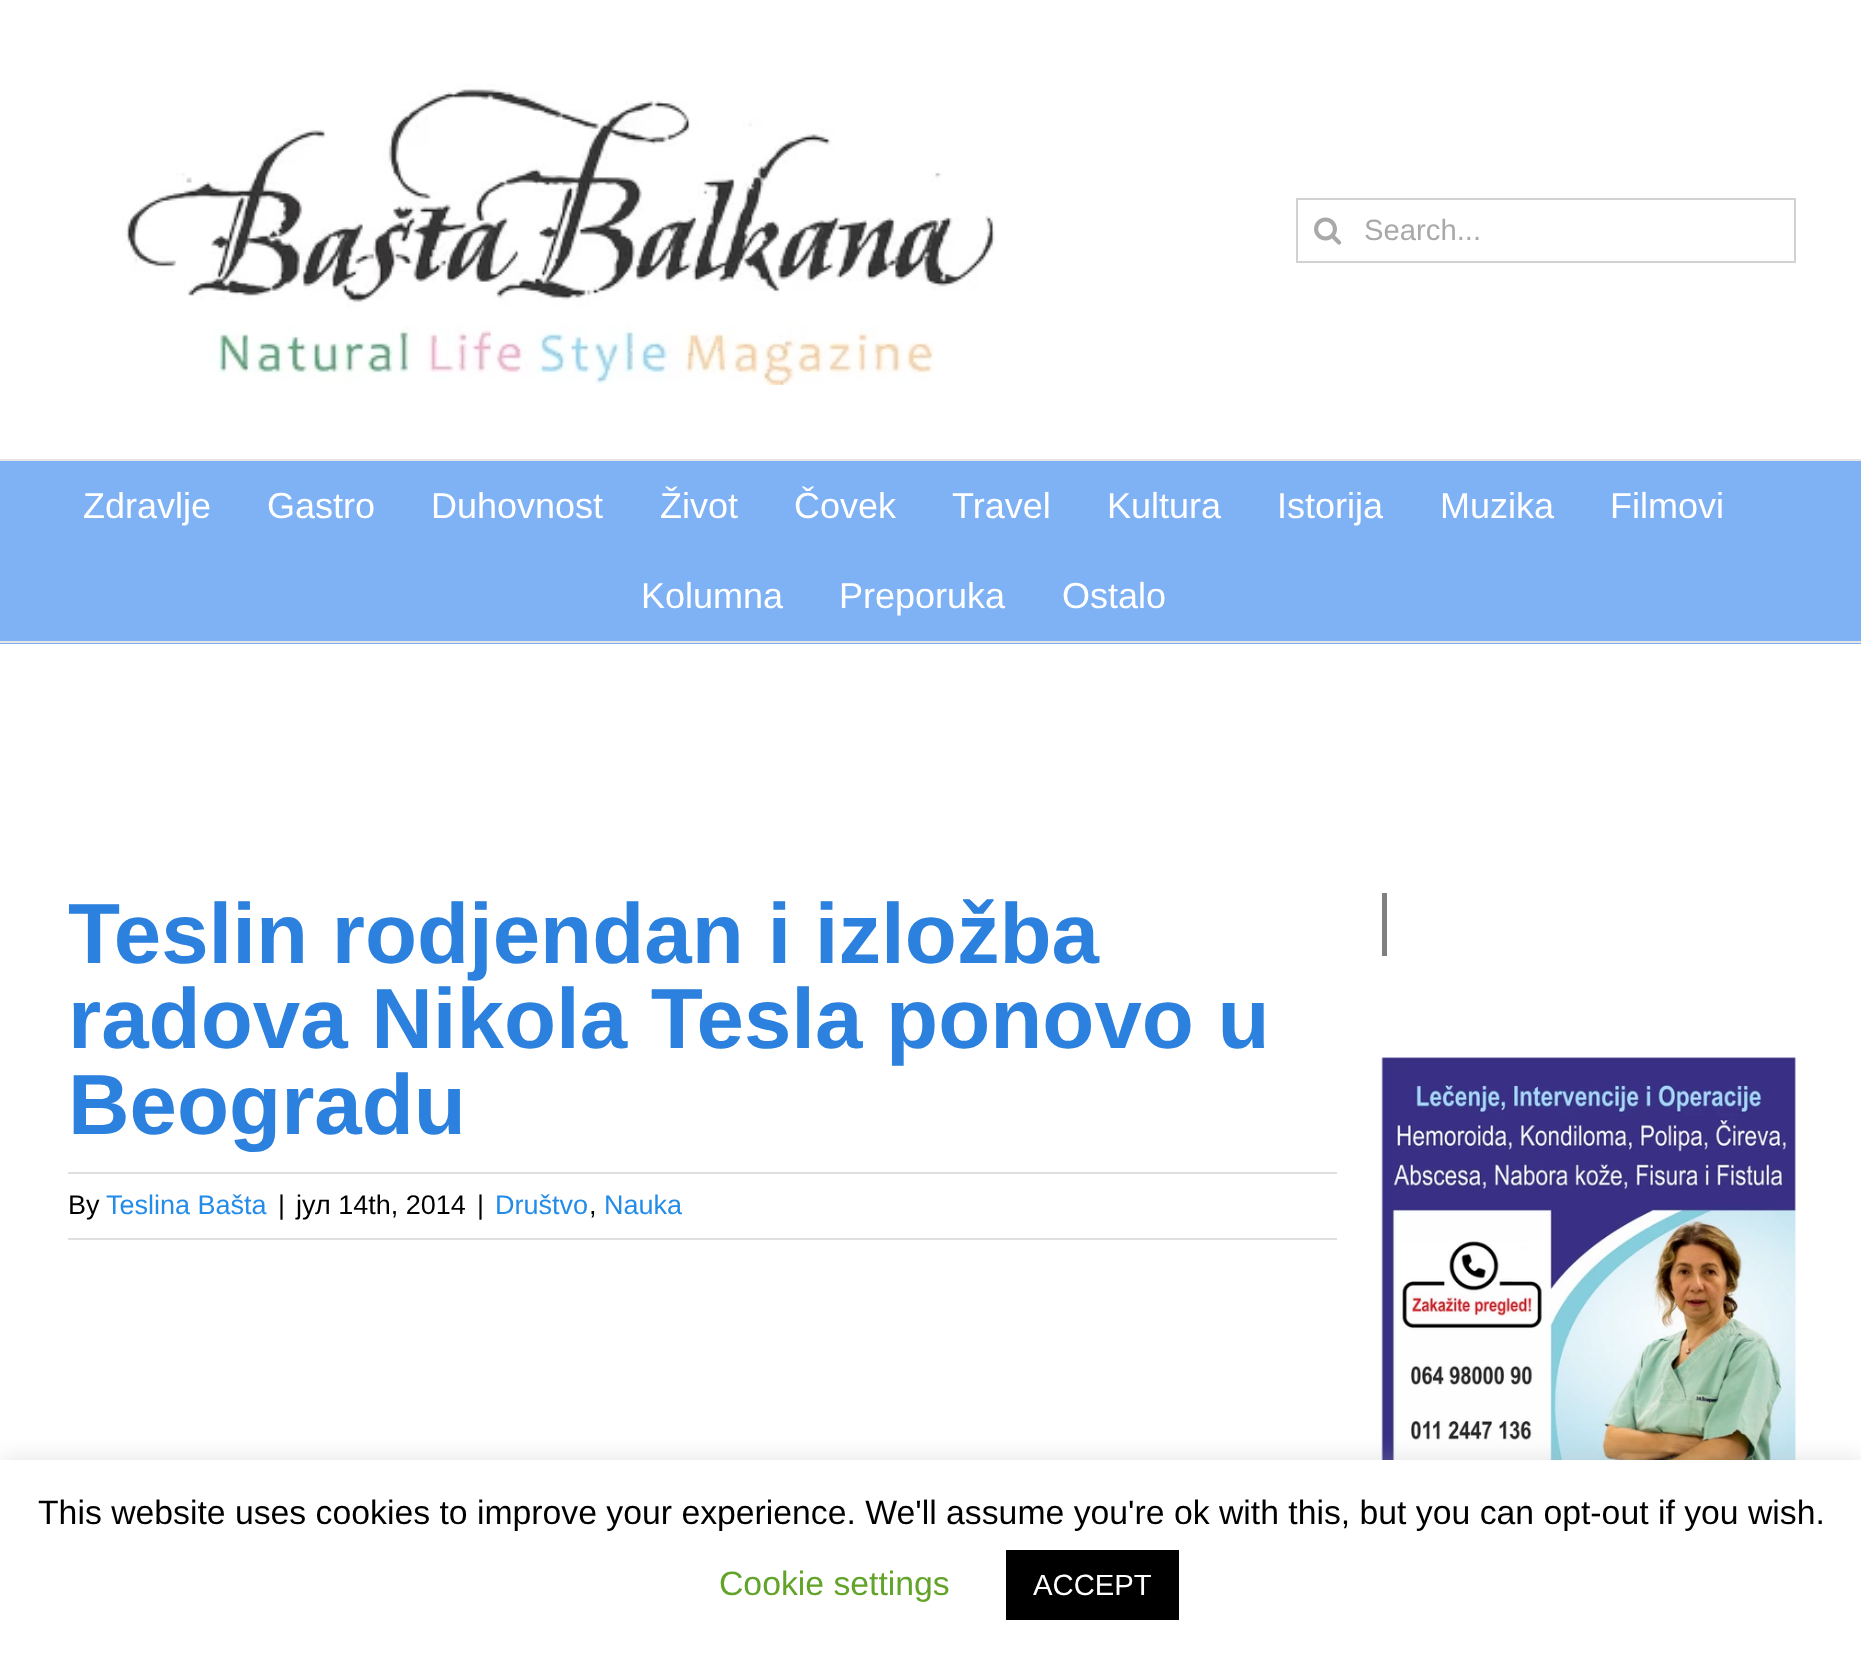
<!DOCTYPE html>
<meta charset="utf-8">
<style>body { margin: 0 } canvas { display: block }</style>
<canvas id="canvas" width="1861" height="1658"></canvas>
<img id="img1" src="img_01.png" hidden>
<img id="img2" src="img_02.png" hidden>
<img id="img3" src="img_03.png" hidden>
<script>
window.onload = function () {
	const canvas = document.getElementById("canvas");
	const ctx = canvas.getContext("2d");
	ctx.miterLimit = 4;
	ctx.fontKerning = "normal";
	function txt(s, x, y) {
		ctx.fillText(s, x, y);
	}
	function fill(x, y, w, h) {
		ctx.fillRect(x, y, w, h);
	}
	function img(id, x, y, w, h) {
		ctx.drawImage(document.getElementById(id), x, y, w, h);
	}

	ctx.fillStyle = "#FFFFFF";
	fill(0, 0, 1861, 1658);
	ctx.fillStyle = "#E5E5E5";
	fill(0, 459, 1861, 2);
	img("img1", 122, 84, 873, 301);
	ctx.strokeStyle = "#D2D2D2";
	ctx.lineWidth = 2;
	ctx.strokeRect(1297, 199, 498, 63);
	img("img2", 1314, 217, 28, 28);
	ctx.fillStyle = "#7FB2F4";
	fill(0, 461, 1861, 183);
	ctx.fillStyle = "#E5E5E5";
	fill(0, 641, 1861, 2);
	ctx.fillStyle = "#E0DEDE";
	fill(68, 1172, 1269, 2);
	fill(68, 1238, 1269, 2);
	ctx.fillStyle = "#808080";
	fill(1382, 893, 5, 63);
	img("img3", 1381, 1057, 415, 403);
	ctx.fillStyle = "rgba(172, 171, 171, 0.3)";
	ctx.filter = "blur(11px)";
	ctx.beginPath();
	ctx.rect(0, 1458, 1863, 198);
	ctx.fill();
	ctx.filter = "none";
	ctx.fillStyle = "#FFFFFF";
	fill(0, 1460, 1861, 198);
	ctx.fillStyle = "#000000";
	fill(1006, 1550, 173, 70);
	ctx.font = "29.25px Liberation Sans";
	ctx.fillStyle = "#AAA9A9";
	txt("Search...", 1364, 240);
	ctx.font = "36px Liberation Sans";
	ctx.fillStyle = "#FFFFFF";
	txt("Zdravlje", 83, 518);
	txt("Gastro", 267, 518);
	txt("Duhovnost", 431, 518);
	txt("Život", 660, 518);
	txt("Čovek", 794, 518);
	txt("Travel", 952, 518);
	txt("Kultura", 1107, 518);
	txt("Istorija", 1277, 518);
	txt("Muzika", 1440, 518);
	txt("Filmovi", 1610, 518);
	txt("Kolumna", 641, 608);
	txt("Preporuka", 839, 608);
	txt("Ostalo", 1062, 608);
	ctx.font = "bold 85.25px Liberation Sans";
	ctx.fillStyle = "#2B81DD";
	txt("Teslin rodjendan i izložba", 68, 963);
	txt("radova Nikola Tesla ponovo u", 68, 1048);
	txt("Beogradu", 68, 1134);
	ctx.font = "27px Liberation Sans";
	ctx.fillStyle = "#000000";
	txt("By", 68, 1214);
	ctx.fillStyle = "#248CE8";
	txt("Teslina Bašta", 106, 1214);
	ctx.fillStyle = "#000000";
	txt("|", 278, 1214);
	txt("јул 14th, 2014", 296, 1214);
	txt("|", 477, 1214);
	ctx.fillStyle = "#248CE8";
	txt("Društvo", 495, 1214);
	ctx.fillStyle = "#000000";
	txt(",", 589, 1214);
	ctx.fillStyle = "#248CE8";
	txt("Nauka", 604, 1214);
	ctx.font = "33.75px Liberation Sans";
	ctx.fillStyle = "#000000";
	txt("This website uses cookies to improve your experience. We'll assume you're ok with this, but you can opt-out if you wish.", 38, 1524);
	ctx.fillStyle = "#62A329";
	txt("Cookie settings", 719, 1595);
	ctx.font = "29.25px Liberation Sans";
	ctx.fillStyle = "#FFFFFF";
	txt("ACCEPT", 1033, 1595);
};
</script>
